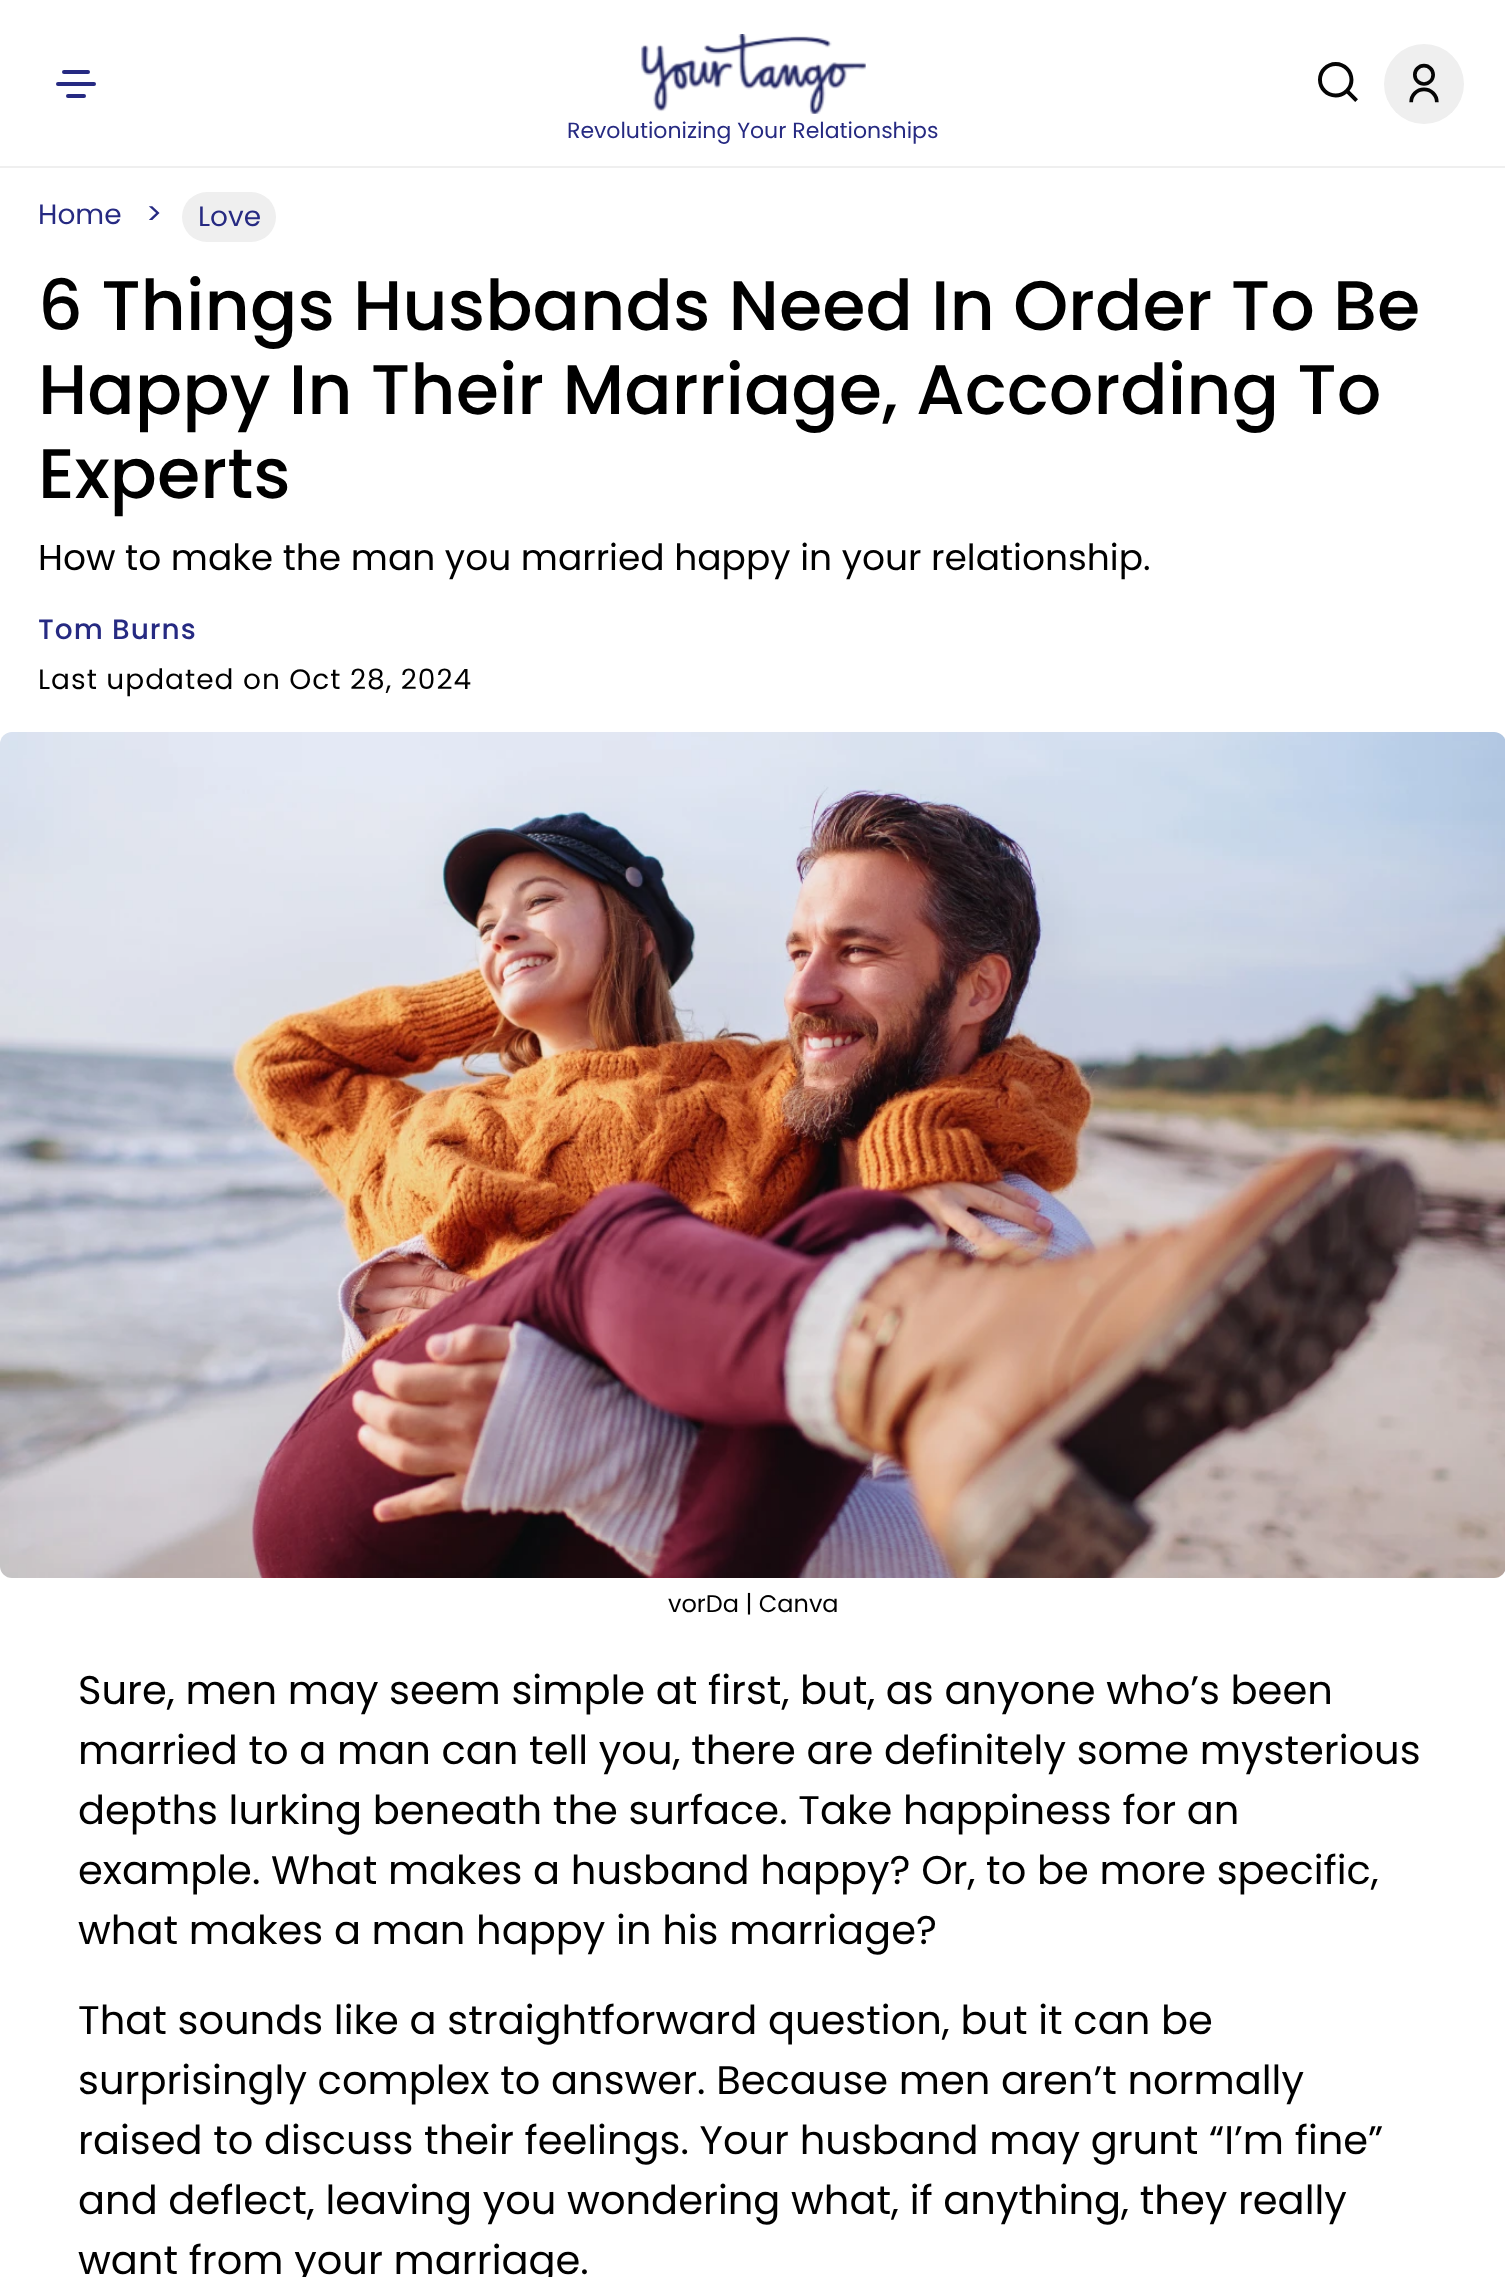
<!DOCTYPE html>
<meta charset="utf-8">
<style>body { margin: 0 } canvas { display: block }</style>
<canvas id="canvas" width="1505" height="2277"></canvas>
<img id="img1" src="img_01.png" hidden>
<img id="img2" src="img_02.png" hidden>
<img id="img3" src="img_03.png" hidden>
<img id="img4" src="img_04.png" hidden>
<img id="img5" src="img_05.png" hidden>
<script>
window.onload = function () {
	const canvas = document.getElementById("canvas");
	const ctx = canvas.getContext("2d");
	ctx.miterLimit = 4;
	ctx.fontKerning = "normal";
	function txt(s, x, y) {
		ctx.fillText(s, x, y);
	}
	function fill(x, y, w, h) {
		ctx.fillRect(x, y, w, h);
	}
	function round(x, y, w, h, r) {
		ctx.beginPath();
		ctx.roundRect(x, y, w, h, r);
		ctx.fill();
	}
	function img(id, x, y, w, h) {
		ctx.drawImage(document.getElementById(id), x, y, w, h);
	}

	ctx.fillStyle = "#FFFFFF";
	fill(0, 0, 1505, 2277);
	ctx.fillStyle = "#EFEFEF";
	fill(0, 166, 1505, 2);
	img("img1", 56, 70, 40, 28);
	img("img2", 1318, 62, 40, 40);
	img("img3", 1384, 44, 80, 80);
	img("img4", 641, 34, 225, 80);
	round(182, 192, 94, 50, 25);
	img("img5", 0, 732, 1505, 846);
	ctx.font = "22px Poppins";
	ctx.fillStyle = "#262A82";
	txt("Revolutionizing Your Relationships", 567, 138);
	ctx.font = "28px Poppins";
	txt("Home", 38, 224);
	ctx.font = "30px Poppins";
	txt(">", 146, 224);
	ctx.font = "28px Poppins";
	txt("Love", 198, 226);
	ctx.font = "500 70px Poppins";
	ctx.fillStyle = "#000000";
	txt("6 Things Husbands Need In Order To Be", 38, 330);
	txt("Happy In Their Marriage, According To", 38, 414);
	txt("Experts", 38, 498);
	ctx.font = "36px Poppins";
	txt("How to make the man you married happy in your relationship.", 38, 570);
	ctx.letterSpacing = "1px";
	ctx.font = "500 28px Poppins";
	ctx.fillStyle = "#262A82";
	txt("Tom Burns", 38, 639);
	ctx.font = "28px Poppins";
	ctx.fillStyle = "#000000";
	txt("Last updated on Oct 28, 2024", 38, 689);
	ctx.letterSpacing = "0px";
	ctx.font = "24px Poppins";
	txt("vorDa | Canva", 668, 1612);
	ctx.font = "40px Poppins";
	txt("Sure, men may seem simple at first, but, as anyone who’s been", 78, 1704);
	txt("married to a man can tell you, there are definitely some mysterious", 78, 1764);
	txt("depths lurking beneath the surface. Take happiness for an", 78, 1824);
	txt("example. What makes a husband happy? Or, to be more specific,", 78, 1884);
	txt("what makes a man happy in his marriage?", 78, 1944);
	txt("That sounds like a straightforward question, but it can be", 78, 2034);
	txt("surprisingly complex to answer. Because men aren’t normally", 78, 2094);
	txt("raised to discuss their feelings. Your husband may grunt “I’m fine”", 78, 2154);
	txt("and deflect, leaving you wondering what, if anything, they really", 78, 2214);
	txt("want from your marriage.", 78, 2274);
};
</script>
